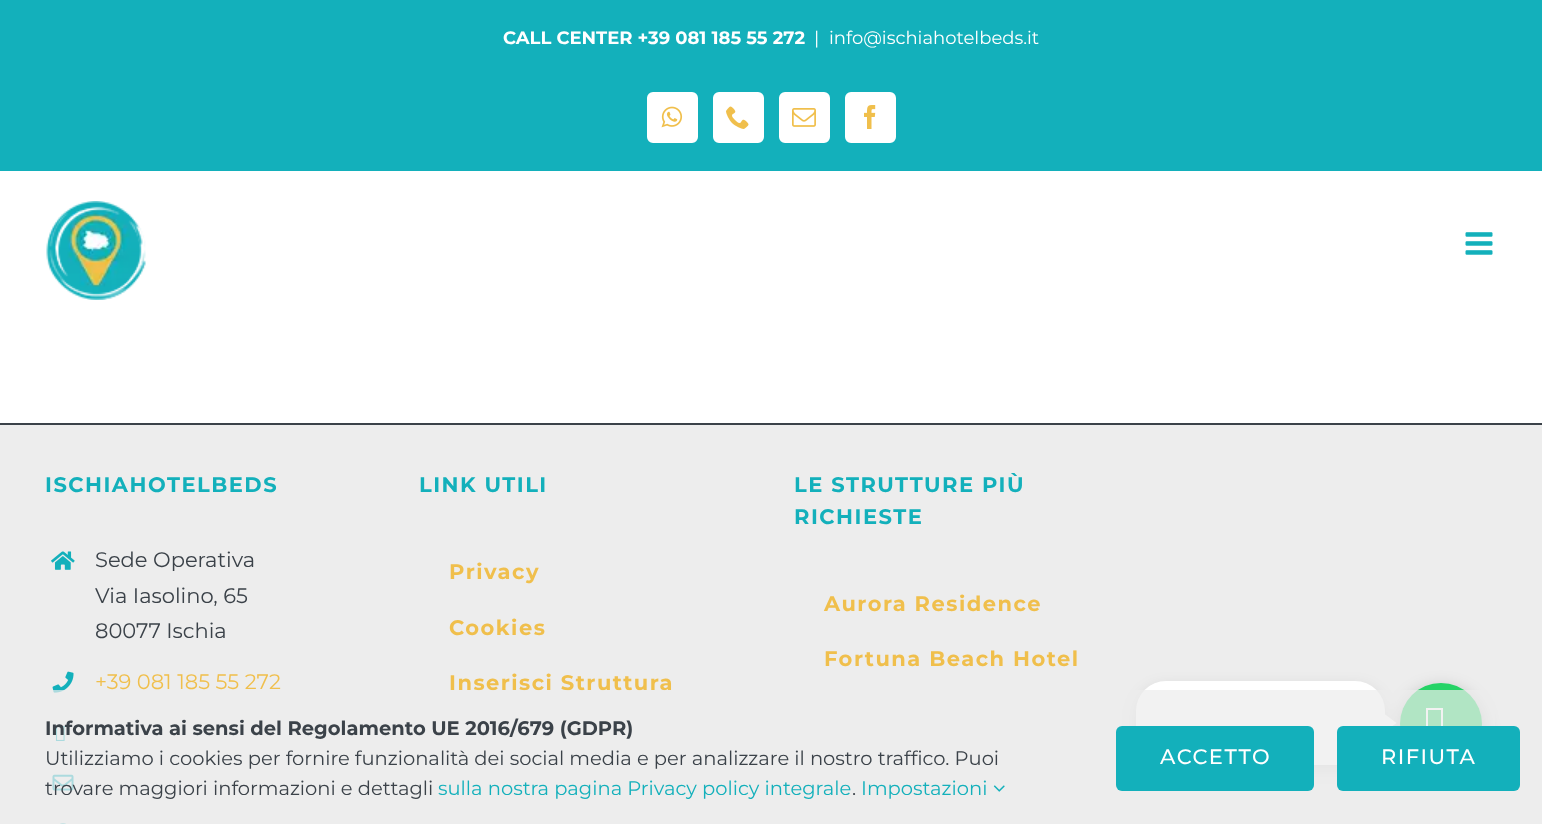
<!DOCTYPE html>
<meta charset="utf-8">
<style>body { margin: 0 } canvas { display: block }</style>
<canvas id="canvas" width="1542" height="824"></canvas>
<img id="img1" src="img_01.png" hidden>
<img id="img2" src="img_02.png" hidden>
<img id="img3" src="img_03.png" hidden>
<img id="img4" src="img_04.png" hidden>
<img id="img5" src="img_05.png" hidden>
<img id="img6" src="img_06.png" hidden>
<img id="img7" src="img_07.png" hidden>
<img id="img8" src="img_08.png" hidden>
<img id="img9" src="img_09.png" hidden>
<img id="img10" src="img_10.png" hidden>
<img id="img11" src="img_11.png" hidden>
<img id="img12" src="img_12.png" hidden>
<script>
window.onload = function () {
	const canvas = document.getElementById("canvas");
	const ctx = canvas.getContext("2d");
	ctx.miterLimit = 4;
	ctx.fontKerning = "normal";
	function txt(s, x, y) {
		ctx.fillText(s, x, y);
	}
	function fill(x, y, w, h) {
		ctx.fillRect(x, y, w, h);
	}
	function round(x, y, w, h, r) {
		ctx.beginPath();
		ctx.roundRect(x, y, w, h, r);
		ctx.fill();
	}
	function img(id, x, y, w, h) {
		ctx.drawImage(document.getElementById(id), x, y, w, h);
	}

	ctx.fillStyle = "#FFFFFF";
	fill(0, 0, 1542, 824);
	ctx.fillStyle = "#13B0BB";
	fill(0, 0, 1542, 171);
	ctx.fillStyle = "#FFFFFF";
	ctx.beginPath();
	ctx.roundRect(648, 93, 49, 49, 5);
	ctx.fill();
	ctx.strokeStyle = "#FFFFFF";
	ctx.lineWidth = 2;
	ctx.stroke();
	img("img1", 661, 106, 22, 22);
	ctx.beginPath();
	ctx.roundRect(714, 93, 49, 49, 5);
	ctx.fill();
	ctx.stroke();
	img("img2", 726, 106, 23, 23);
	ctx.beginPath();
	ctx.roundRect(780, 93, 49, 49, 5);
	ctx.fill();
	ctx.stroke();
	img("img3", 792, 108, 24, 19);
	ctx.beginPath();
	ctx.roundRect(846, 93, 49, 49, 5);
	ctx.fill();
	ctx.stroke();
	img("img4", 864, 105, 12, 24);
	img("img5", 46, 201, 100, 99);
	img("img6", 1465, 232, 28, 23);
	ctx.fillStyle = "#EDEDED";
	fill(0, 425, 1542, 399);
	ctx.fillStyle = "#3B4249";
	fill(0, 423, 1542, 2);
	img("img7", 51, 551, 24, 19);
	img("img8", 52, 671, 22, 22);
	img("img9", 55, 726, 10, 15);
	img("img10", 52, 774, 22, 17);
	img("img11", 60, 823, 6, 1);
	ctx.fillStyle = "rgba(0, 0, 0, 0.25)";
	ctx.filter = "blur(9px)";
	ctx.beginPath();
	ctx.roundRect(1400, 689, 82, 82, 41);
	ctx.fill();
	ctx.filter = "none";
	ctx.fillStyle = "#25D366";
	ctx.beginPath();
	ctx.arc(1441, 724, 41, 0, Math.PI * 2);
	ctx.fill();
	ctx.fillStyle = "rgba(0, 0, 0, 0.1)";
	ctx.filter = "blur(7.5px)";
	ctx.beginPath();
	ctx.roundRect(1136, 686, 249, 84, 30);
	ctx.fill();
	ctx.filter = "none";
	ctx.fillStyle = "#FFFFFF";
	round(1136, 681, 249, 84, 30);
	ctx.beginPath();
	ctx.moveTo(1384.5, 732);
	ctx.lineTo(1384.5, 714);
	ctx.lineTo(1396.5, 723);
	ctx.closePath();
	ctx.fill();
	ctx.beginPath();
	ctx.moveTo(1426, 738);
	ctx.lineTo(1426, 708);
	ctx.lineTo(1443, 708);
	ctx.lineTo(1443, 738);
	ctx.closePath();
	ctx.moveTo(1428, 736);
	ctx.lineTo(1441, 736);
	ctx.lineTo(1441, 710);
	ctx.lineTo(1428, 710);
	ctx.closePath();
	ctx.fill();
	ctx.font = "bold 18px Montserrat";
	txt("CALL CENTER +39 081 185 55 272", 503, 44);
	ctx.font = "18px Montserrat";
	txt("|", 814, 44);
	txt("info@ischiahotelbeds.it", 829, 44);
	ctx.letterSpacing = "1.5px";
	ctx.font = "bold 21px Montserrat";
	ctx.fillStyle = "#13B0BB";
	txt("ISCHIAHOTELBEDS", 45, 492);
	ctx.letterSpacing = "0px";
	ctx.font = "21px Montserrat";
	ctx.fillStyle = "#3B4249";
	txt("Sede Operativa", 95, 567);
	txt("Via Iasolino, 65", 95, 603);
	txt("80077 Ischia", 95, 638);
	ctx.fillStyle = "#F0BF4C";
	txt("+39 081 185 55 272", 95, 689);
	ctx.letterSpacing = "1.5px";
	ctx.font = "bold 21px Montserrat";
	ctx.fillStyle = "#13B0BB";
	txt("LINK UTILI", 419, 492);
	ctx.fillStyle = "#F0BF4C";
	txt("Privacy", 449, 579);
	txt("Cookies", 449, 635);
	txt("Inserisci Struttura", 449, 690);
	ctx.fillStyle = "#13B0BB";
	txt("LE STRUTTURE PIÙ", 794, 492);
	txt("RICHIESTE", 794, 524);
	ctx.fillStyle = "#F0BF4C";
	txt("Aurora Residence", 824, 611);
	txt("Fortuna Beach Hotel", 824, 666);
	ctx.fillStyle = "rgba(237, 237, 237, 0.7)";
	fill(52, 690, 1443, 134);
	ctx.letterSpacing = "0px";
	ctx.font = "bold 19.5px Montserrat";
	ctx.fillStyle = "#3B4249";
	txt("Informativa ai sensi del Regolamento UE 2016/679 (GDPR)", 45, 735);
	ctx.font = "19.5px Montserrat";
	txt("Utilizziamo i cookies per fornire funzionalità dei social media e per analizzare il nostro traffico. Puoi", 45, 765);
	txt("trovare maggiori informazioni e dettagli", 45, 795);
	ctx.fillStyle = "#13B0BB";
	txt("sulla nostra pagina Privacy policy integrale", 438, 795);
	txt("Impostazioni", 861, 795);
	img("img12", 993, 785, 12, 7);
	ctx.fillStyle = "#3B4249";
	txt(".", 852, 795);
	ctx.fillStyle = "#13B0BB";
	round(1116, 726, 198, 65, 6);
	ctx.letterSpacing = "1.5px";
	ctx.font = "500 21px Montserrat";
	ctx.fillStyle = "#FFFFFF";
	txt("ACCETTO", 1160, 764);
	ctx.fillStyle = "#13B0BB";
	round(1337, 726, 183, 65, 6);
	ctx.fillStyle = "#FFFFFF";
	txt("RIFIUTA", 1381, 764);
};
</script>
